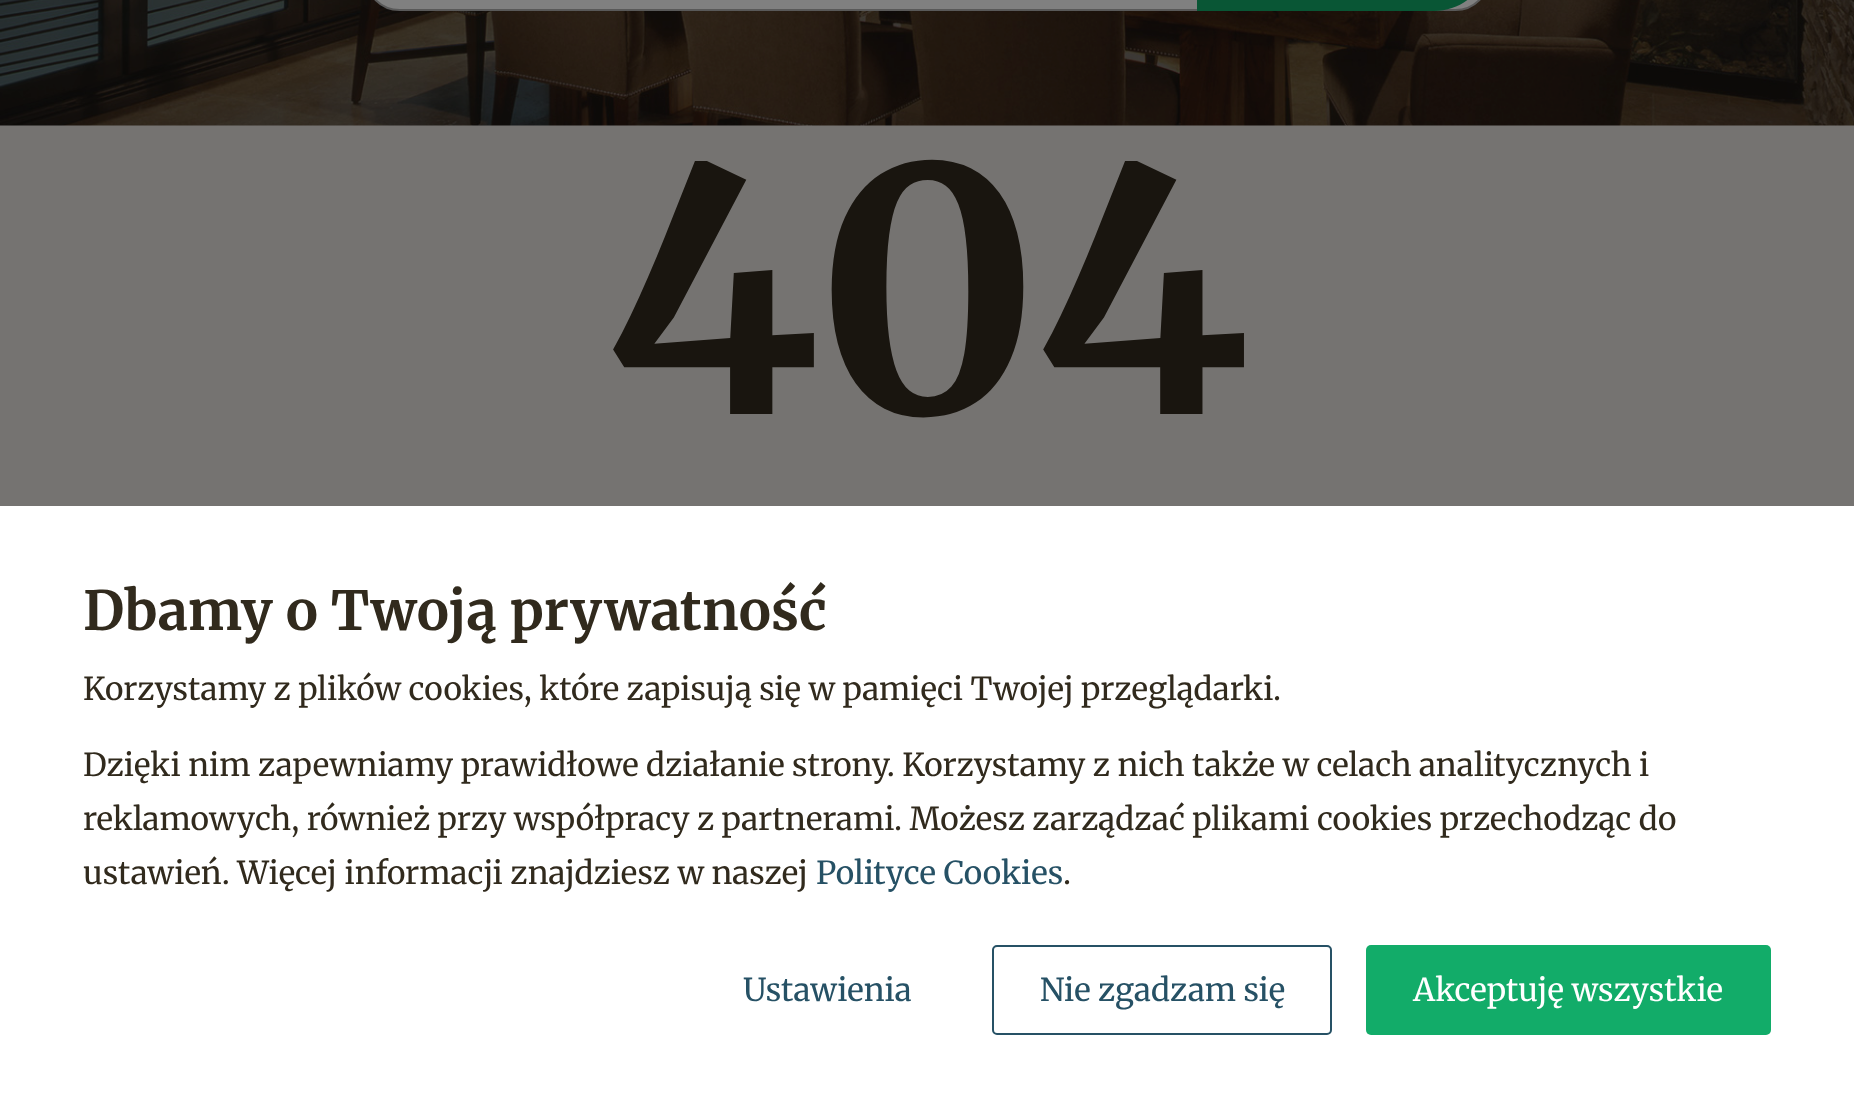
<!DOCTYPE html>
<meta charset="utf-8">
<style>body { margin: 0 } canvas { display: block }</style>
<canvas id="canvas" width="1854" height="1112"></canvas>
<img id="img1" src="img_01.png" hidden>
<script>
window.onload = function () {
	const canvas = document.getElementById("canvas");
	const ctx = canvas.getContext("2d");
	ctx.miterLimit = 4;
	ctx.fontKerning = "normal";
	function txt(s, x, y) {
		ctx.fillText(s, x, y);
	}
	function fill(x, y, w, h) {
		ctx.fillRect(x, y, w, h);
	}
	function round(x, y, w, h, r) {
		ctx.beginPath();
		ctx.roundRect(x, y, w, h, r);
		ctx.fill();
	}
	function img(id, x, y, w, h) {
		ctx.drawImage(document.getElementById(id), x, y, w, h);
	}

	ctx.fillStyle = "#757371";
	fill(0, 0, 1854, 1112);
	img("img1", 0, 0, 1854, 126);
	ctx.fillStyle = "#808080";
	ctx.beginPath();
	ctx.roundRect(366, -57, 1123, 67, 55);
	ctx.fill();
	ctx.strokeStyle = "#595959";
	ctx.lineWidth = 2;
	ctx.stroke();
	ctx.fillStyle = "#095635";
	ctx.beginPath();
	ctx.moveTo(1197, -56);
	ctx.lineTo(1434, -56);
	ctx.bezierCurveTo(1465, -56, 1490, -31, 1490, 0);
	ctx.lineTo(1490, -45);
	ctx.bezierCurveTo(1490, -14, 1465, 11, 1434, 11);
	ctx.lineTo(1197, 11);
	ctx.closePath();
	ctx.fill();
	ctx.fillStyle = "#FFFFFF";
	fill(0, 506, 1854, 606);
	ctx.beginPath();
	ctx.roundRect(993, 946, 338, 88, 4);
	ctx.strokeStyle = "#265165";
	ctx.stroke();
	ctx.fillStyle = "#12AC69";
	round(1366, 945, 405, 90, 5);
	ctx.font = "bold 338px Merriweather";
	ctx.fillStyle = "#19150F";
	txt("404", 605, 414);
	ctx.font = "bold 54px Merriweather";
	ctx.fillStyle = "#312A1D";
	txt("Dbamy o Twoją prywatność", 83, 630);
	ctx.font = "31.5px Merriweather";
	txt("Korzystamy z plików cookies, które zapisują się w pamięci Twojej przeglądarki.", 83, 700);
	txt("Dzięki nim zapewniamy prawidłowe działanie strony. Korzystamy z nich także w celach analitycznych i", 83, 776);
	txt("reklamowych, również przy współpracy z partnerami. Możesz zarządzać plikami cookies przechodząc do", 83, 830);
	txt("ustawień. Więcej informacji znajdziesz w naszej", 83, 884);
	ctx.fillStyle = "#265165";
	txt("Polityce Cookies", 816, 884);
	ctx.fillStyle = "#312A1D";
	txt(".", 1063, 884);
	ctx.fillStyle = "#265165";
	txt("Ustawienia", 743, 1001);
	txt("Nie zgadzam się", 1040, 1001);
	ctx.fillStyle = "#FFFFFF";
	txt("Akceptuję wszystkie", 1413, 1001);
};
</script>
